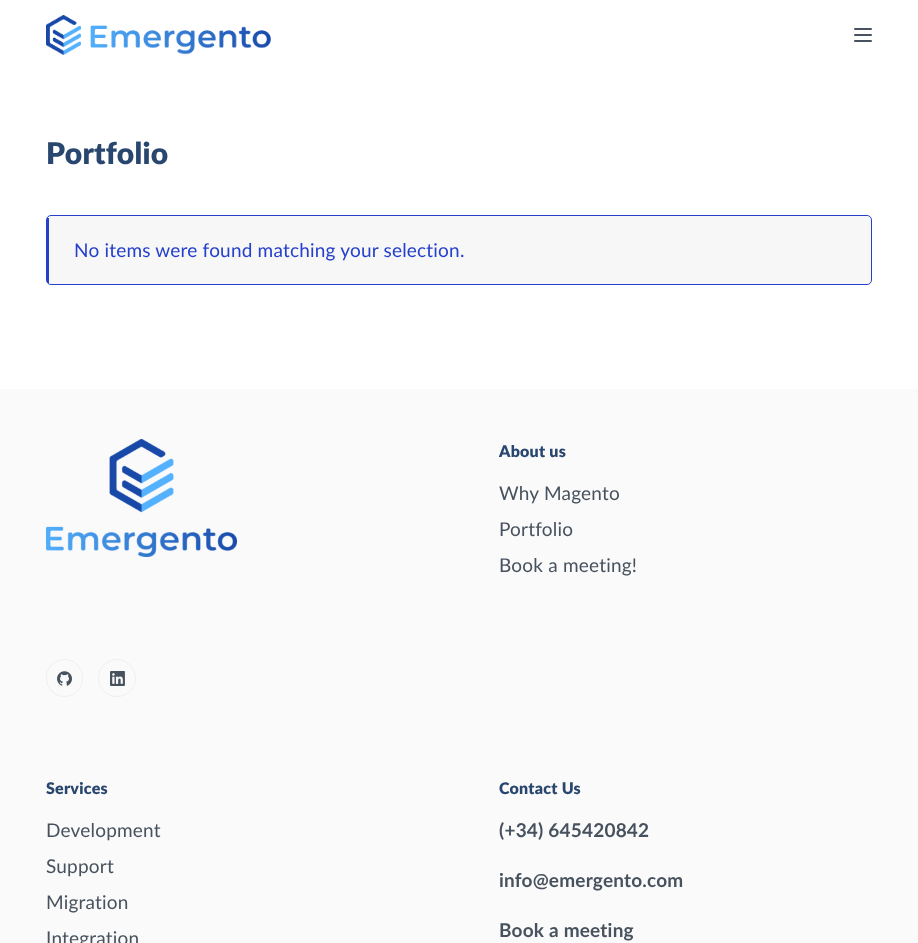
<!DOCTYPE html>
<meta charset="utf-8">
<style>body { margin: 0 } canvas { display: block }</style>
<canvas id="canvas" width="918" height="943"></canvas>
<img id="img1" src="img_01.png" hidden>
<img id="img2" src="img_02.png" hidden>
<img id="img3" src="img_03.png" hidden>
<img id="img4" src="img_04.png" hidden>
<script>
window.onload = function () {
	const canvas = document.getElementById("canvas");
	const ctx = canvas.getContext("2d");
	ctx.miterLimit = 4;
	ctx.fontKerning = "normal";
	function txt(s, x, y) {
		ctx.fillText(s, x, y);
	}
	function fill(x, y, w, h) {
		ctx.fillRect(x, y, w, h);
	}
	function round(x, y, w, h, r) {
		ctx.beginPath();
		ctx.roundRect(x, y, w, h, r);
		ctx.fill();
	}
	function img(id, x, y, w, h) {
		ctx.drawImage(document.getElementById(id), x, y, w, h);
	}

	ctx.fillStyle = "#FFFFFF";
	fill(0, 0, 918, 943);
	img("img1", 46, 15, 225, 40);
	ctx.fillStyle = "#47525E";
	round(854, 28, 18, 2, 1);
	round(854, 34, 18, 2, 1);
	round(854, 40, 18, 2, 1);
	ctx.fillStyle = "#F7F7F7";
	ctx.beginPath();
	ctx.moveTo(51, 216);
	ctx.lineTo(867, 216);
	ctx.bezierCurveTo(869, 216, 871, 218, 871, 220);
	ctx.lineTo(871, 280);
	ctx.bezierCurveTo(871, 282, 869, 284, 867, 284);
	ctx.lineTo(51, 284);
	ctx.bezierCurveTo(50, 284, 49, 282, 49, 280);
	ctx.lineTo(49, 220);
	ctx.bezierCurveTo(49, 218, 50, 216, 51, 216);
	ctx.closePath();
	ctx.fill();
	ctx.beginPath();
	ctx.roundRect(46.5, 215.5, 825, 69, 4.5);
	ctx.strokeStyle = "#2540CC";
	ctx.stroke();
	ctx.fillStyle = "#2540CC";
	fill(47, 218, 2, 65);
	ctx.fillStyle = "#FAFAFA";
	fill(0, 389, 918, 554);
	img("img2", 46, 439, 191, 118);
	ctx.beginPath();
	ctx.roundRect(46.5, 659.5, 36, 37, 18);
	ctx.strokeStyle = "#EDEFF1";
	ctx.stroke();
	img("img3", 57, 671, 15, 15);
	ctx.beginPath();
	ctx.arc(117, 678, 18.5, 0, Math.PI * 2);
	ctx.stroke();
	img("img4", 110, 671, 15, 15);
	ctx.letterSpacing = "0.25px";
	ctx.font = "800 30px Lato";
	ctx.fillStyle = "#28466E";
	txt("Portfolio", 46, 164);
	ctx.letterSpacing = "0.2px";
	ctx.font = "19px Lato";
	ctx.fillStyle = "#2540CC";
	txt("No items were found matching your selection.", 74, 257);
	ctx.letterSpacing = "0.25px";
	ctx.font = "800 16px Lato";
	ctx.fillStyle = "#28466E";
	txt("About us", 499, 457);
	ctx.letterSpacing = "0.2px";
	ctx.font = "19px Lato";
	ctx.fillStyle = "#47525E";
	txt("Why Magento", 499, 500);
	txt("Portfolio", 499, 536);
	txt("Book a meeting!", 499, 572);
	ctx.letterSpacing = "0.25px";
	ctx.font = "800 16px Lato";
	ctx.fillStyle = "#28466E";
	txt("Services", 46, 794);
	ctx.letterSpacing = "0.2px";
	ctx.font = "19px Lato";
	ctx.fillStyle = "#47525E";
	txt("Development", 46, 837);
	txt("Support", 46, 873);
	txt("Migration", 46, 909);
	txt("Integration", 46, 945);
	ctx.letterSpacing = "0.25px";
	ctx.font = "800 16px Lato";
	ctx.fillStyle = "#28466E";
	txt("Contact Us", 499, 794);
	ctx.letterSpacing = "0.2px";
	ctx.font = "bold 19px Lato";
	ctx.fillStyle = "#47525E";
	txt("(+34) 645420842", 499, 837);
	txt("info@emergento.com", 499, 887);
	txt("Book a meeting", 499, 937);
};
</script>
